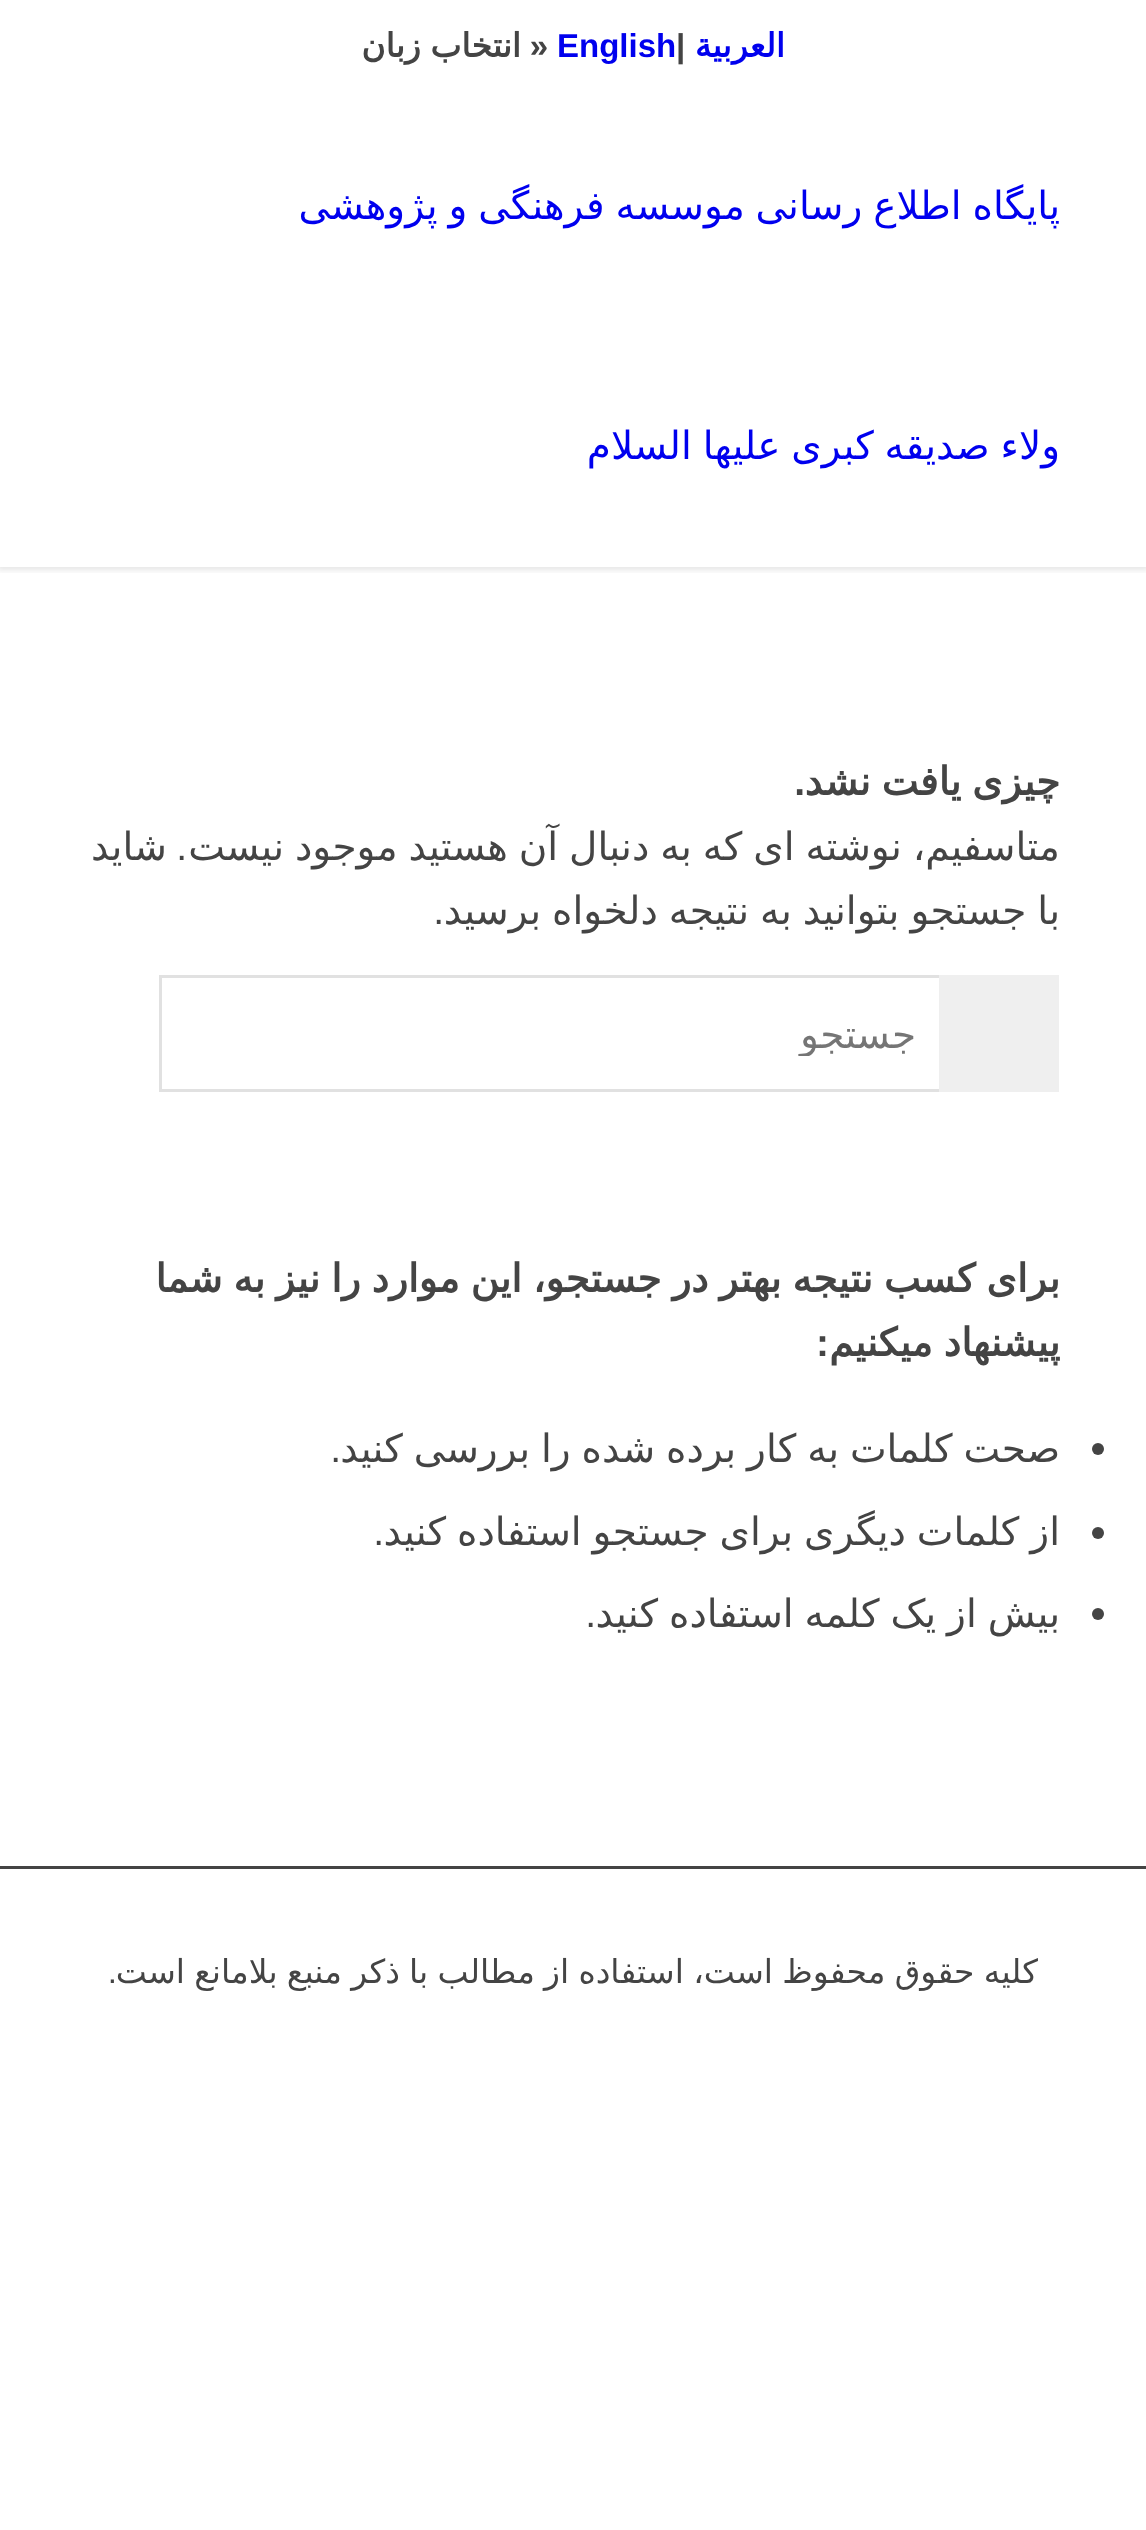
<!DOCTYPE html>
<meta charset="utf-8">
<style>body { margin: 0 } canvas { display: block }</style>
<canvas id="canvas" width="1146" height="2530"></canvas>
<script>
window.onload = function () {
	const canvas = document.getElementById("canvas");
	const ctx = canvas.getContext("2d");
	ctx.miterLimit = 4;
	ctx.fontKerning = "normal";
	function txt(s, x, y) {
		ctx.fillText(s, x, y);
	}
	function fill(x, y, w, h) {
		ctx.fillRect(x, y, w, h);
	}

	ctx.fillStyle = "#FFFFFF";
	fill(0, 0, 1146, 2530);
	ctx.save();
	ctx.beginPath();
	ctx.rect(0, 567, 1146, 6);
	ctx.clip();
	ctx.fillStyle = "rgba(0, 0, 0, 0.1)";
	ctx.filter = "blur(3px)";
	ctx.beginPath();
	ctx.rect(-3, -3, 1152, 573);
	ctx.fill();
	ctx.filter = "none";
	ctx.restore();
	ctx.strokeStyle = "#E1E1E1";
	ctx.lineWidth = 3;
	ctx.strokeRect(160.5, 976.5, 897, 114);
	ctx.fillStyle = "#EFEFEF";
	fill(939, 975, 120, 117);
	ctx.fillStyle = "#444444";
	ctx.beginPath();
	ctx.arc(1098, 1449, 6, 0, Math.PI * 2);
	ctx.fill();
	ctx.beginPath();
	ctx.arc(1098, 1533, 6, 0, Math.PI * 2);
	ctx.fill();
	ctx.beginPath();
	ctx.arc(1098, 1614, 6, 0, Math.PI * 2);
	ctx.fill();
	fill(0, 1866, 1146, 3);
	ctx.direction = "rtl";
	ctx.font = "bold 33px DejaVu Sans";
	ctx.fillStyle = "#0000EE";
	txt("العربیة", 785, 57);
	ctx.direction = "ltr";
	ctx.font = "bold 33px Liberation Sans";
	ctx.fillStyle = "#444444";
	txt("|", 676, 57);
	ctx.fillStyle = "#0000EE";
	txt("English", 557, 57);
	ctx.direction = "rtl";
	ctx.fillStyle = "#444444";
	txt("«", 548, 57);
	ctx.wordSpacing = "-1px";
	ctx.font = "bold 33px DejaVu Sans";
	txt("انتخاب زبان", 521, 57);
	ctx.wordSpacing = "-1.5px";
	ctx.font = "39px DejaVu Sans";
	ctx.fillStyle = "#0000EE";
	txt("پایگاه اطلاع رسانی", 1060, 219);
	txt("موسسه فرهنگی و پژوهشی", 745, 219);
	txt("ولاء صدیقه کبری علیها السلام", 1060, 459);
	ctx.font = "bold 39px DejaVu Sans";
	ctx.fillStyle = "#444444";
	txt("چیزی یافت نشد", 1060, 795);
	ctx.wordSpacing = "0px";
	ctx.font = "bold 39px Liberation Sans";
	txt(".", 805, 795);
	ctx.wordSpacing = "-1.5px";
	ctx.font = "39px DejaVu Sans";
	txt("متاسفیم، نوشته ای که به دنبال آن هستید موجود نیست", 1060, 860);
	ctx.wordSpacing = "0px";
	ctx.font = "39px Liberation Sans";
	txt(".", 187, 860);
	ctx.font = "39px DejaVu Sans";
	txt("شاید", 167, 860);
	ctx.wordSpacing = "-1.5px";
	txt("با جستجو بتوانید به نتیجه دلخواه برسید", 1060, 924);
	ctx.wordSpacing = "0px";
	ctx.font = "39px Liberation Sans";
	txt(".", 444, 924);
	ctx.save();
	ctx.beginPath();
	ctx.rect(177, 1011, 738, 45);
	ctx.clip();
	ctx.font = "39px DejaVu Sans";
	ctx.fillStyle = "#757575";
	txt("جستجو", 916, 1048);
	ctx.restore();
	ctx.wordSpacing = "-1.5px";
	ctx.font = "bold 39px DejaVu Sans";
	txt("برای کسب نتیجه بهتر در جستجو، این موارد را نیز به شما", 1060, 1292);
	txt("پیشنهاد میکنیم", 1060, 1356);
	ctx.wordSpacing = "0px";
	ctx.font = "bold 39px Liberation Sans";
	txt(":", 829, 1356);
	ctx.wordSpacing = "-1.5px";
	ctx.font = "39px DejaVu Sans";
	txt("صحت کلمات به کار برده شده را بررسی کنید", 1060, 1462);
	ctx.wordSpacing = "0px";
	ctx.font = "39px Liberation Sans";
	txt(".", 341, 1462);
	ctx.wordSpacing = "-1.5px";
	ctx.font = "39px DejaVu Sans";
	txt("از کلمات دیگری برای جستجو استفاده کنید", 1060, 1545);
	ctx.wordSpacing = "0px";
	ctx.font = "39px Liberation Sans";
	txt(".", 384, 1545);
	ctx.wordSpacing = "-1.5px";
	ctx.font = "39px DejaVu Sans";
	txt("بیش از یک کلمه استفاده کنید", 1060, 1627);
	ctx.wordSpacing = "0px";
	ctx.font = "39px Liberation Sans";
	txt(".", 596, 1627);
	ctx.wordSpacing = "-1.25px";
	ctx.font = "33px DejaVu Sans";
	txt("کلیه حقوق محفوظ است، استفاده از مطالب با ذکر منبع بلامانع است", 1038, 1983);
	ctx.wordSpacing = "0px";
	ctx.font = "33px Liberation Sans";
	txt(".", 117, 1983);
};
</script>
